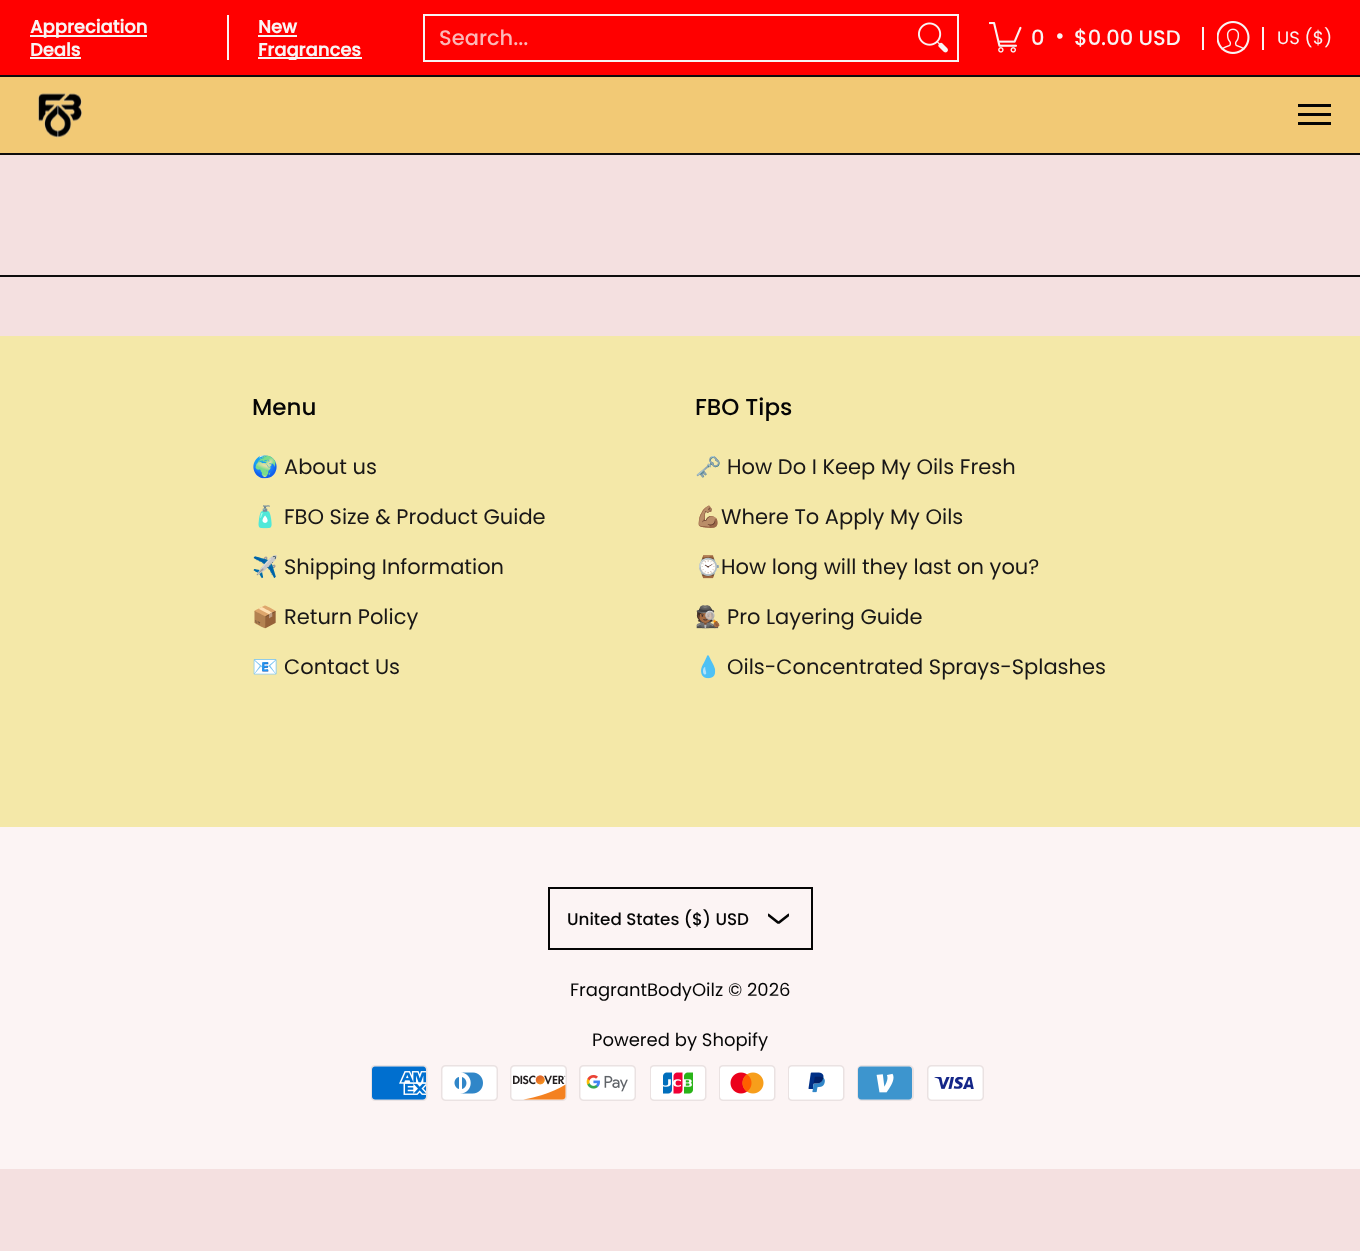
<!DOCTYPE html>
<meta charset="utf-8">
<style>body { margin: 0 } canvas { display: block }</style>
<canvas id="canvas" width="1360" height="1251"></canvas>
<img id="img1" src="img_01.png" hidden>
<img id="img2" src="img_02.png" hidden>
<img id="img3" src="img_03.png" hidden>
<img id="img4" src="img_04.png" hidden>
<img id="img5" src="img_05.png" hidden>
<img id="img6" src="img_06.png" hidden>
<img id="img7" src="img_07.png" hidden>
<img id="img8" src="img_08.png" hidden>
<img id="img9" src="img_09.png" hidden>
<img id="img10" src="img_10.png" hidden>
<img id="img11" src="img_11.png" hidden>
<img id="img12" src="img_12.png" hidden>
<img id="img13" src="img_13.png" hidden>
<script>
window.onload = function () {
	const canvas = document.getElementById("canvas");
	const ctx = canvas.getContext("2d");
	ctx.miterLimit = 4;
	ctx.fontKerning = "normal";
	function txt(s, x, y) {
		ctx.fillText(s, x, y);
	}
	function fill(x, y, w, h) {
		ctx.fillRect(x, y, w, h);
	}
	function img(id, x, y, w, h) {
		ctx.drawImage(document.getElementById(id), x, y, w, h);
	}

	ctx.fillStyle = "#F4E0E0";
	fill(0, 0, 1360, 1251);
	ctx.fillStyle = "#F2C975";
	fill(0, 77, 1360, 76);
	ctx.fillStyle = "#FF0000";
	fill(0, 0, 1360, 75);
	ctx.fillStyle = "#0E0D0D";
	fill(0, 75, 1360, 2);
	ctx.fillStyle = "#F9F4F4";
	fill(30, 35, 117, 2);
	fill(30, 57, 51, 2);
	fill(227, 15, 2, 45);
	fill(258, 35, 39, 2);
	fill(258, 57, 104, 2);
	ctx.strokeStyle = "#F9F4F4";
	ctx.lineWidth = 2;
	ctx.strokeRect(424, 15, 534, 46);
	img("img1", 918, 22, 30, 31);
	img("img2", 989, 22, 33, 31);
	fill(1202, 27, 2, 23);
	img("img3", 1217, 21, 33, 33);
	fill(1262, 27, 2, 23);
	ctx.fillStyle = "#0E0D0D";
	fill(0, 153, 1360, 2);
	img("img4", 38, 93, 44, 45);
	ctx.fillStyle = "#050505";
	fill(1298, 104, 33, 3);
	fill(1298, 122, 33, 3);
	fill(1298, 113, 33, 3);
	ctx.fillStyle = "#0E0D0D";
	fill(0, 275, 1360, 2);
	ctx.fillStyle = "#F4E8A8";
	fill(0, 336, 1360, 491);
	ctx.fillStyle = "#FCF4F4";
	fill(0, 827, 1360, 342);
	ctx.strokeStyle = "#050505";
	ctx.strokeRect(549, 888, 263, 61);
	ctx.save();
	ctx.beginPath();
	ctx.rect(768, 908, 21, 21);
	ctx.clip();
	ctx.beginPath();
	ctx.moveTo(768.5, 915);
	ctx.lineTo(778, 922.5);
	ctx.lineTo(779, 922.5);
	ctx.lineTo(788.5, 915);
	ctx.lineWidth = 2.6;
	ctx.lineCap = "round";
	ctx.lineJoin = "round";
	ctx.stroke();
	ctx.restore();
	img("img5", 371, 1065, 57, 36);
	img("img6", 441, 1065, 57, 36);
	img("img7", 510, 1065, 57, 36);
	img("img8", 579, 1065, 57, 36);
	img("img9", 650, 1065, 57, 36);
	img("img10", 719, 1065, 57, 36);
	img("img11", 788, 1065, 57, 36);
	img("img12", 857, 1065, 57, 36);
	img("img13", 927, 1065, 57, 36);
	ctx.font = "bold 18px Poppins";
	ctx.fillStyle = "#F9F4F4";
	txt("Appreciation", 30, 33);
	txt("Deals", 30, 56);
	txt("New", 258, 33);
	ctx.save();
	ctx.beginPath();
	ctx.rect(228, 15, 173, 45);
	ctx.clip();
	txt("Fragrances", 258, 56);
	ctx.restore();
	ctx.font = "500 21px Poppins";
	ctx.fillStyle = "#FBB7B7";
	txt("Search...", 439, 45);
	ctx.fillStyle = "#F9F4F4";
	txt("0", 1031, 45);
	txt("•", 1055, 43);
	txt("$0.00 USD", 1074, 45);
	ctx.font = "18px Poppins";
	txt("US ($)", 1277, 44);
	ctx.font = "500 23px Poppins";
	ctx.fillStyle = "#050505";
	txt("Menu", 252, 415);
	ctx.save();
	ctx.beginPath();
	ctx.rect(252, 441, 414, 281);
	ctx.clip();
	ctx.font = "21px Noto Color Emoji";
	ctx.fillStyle = "#191717";
	txt("🌍", 252, 474);
	ctx.restore();
	ctx.font = "21px Poppins";
	ctx.fillStyle = "#191717";
	txt("About us", 284, 474);
	ctx.save();
	ctx.beginPath();
	ctx.rect(252, 441, 414, 281);
	ctx.clip();
	ctx.font = "21px Noto Color Emoji";
	txt("🧴", 252, 524);
	ctx.restore();
	txt("FBO Size & Product Guide", 284, 524);
	ctx.save();
	ctx.beginPath();
	ctx.rect(252, 441, 414, 281);
	ctx.clip();
	ctx.font = "21px Noto Color Emoji";
	txt("✈️", 252, 574);
	ctx.restore();
	txt("Shipping Information", 284, 574);
	ctx.save();
	ctx.beginPath();
	ctx.rect(252, 441, 414, 281);
	ctx.clip();
	ctx.font = "21px Noto Color Emoji";
	txt("📦", 252, 624);
	ctx.restore();
	txt("Return Policy", 284, 624);
	ctx.save();
	ctx.beginPath();
	ctx.rect(252, 441, 414, 281);
	ctx.clip();
	ctx.font = "21px Noto Color Emoji";
	txt("📧", 252, 674);
	ctx.restore();
	txt("Contact Us", 284, 674);
	ctx.font = "500 23px Poppins";
	ctx.fillStyle = "#050505";
	txt("FBO Tips", 695, 415);
	ctx.save();
	ctx.beginPath();
	ctx.rect(696, 441, 413, 281);
	ctx.clip();
	ctx.font = "21px Noto Color Emoji";
	ctx.fillStyle = "#191717";
	txt("🗝️", 695, 474);
	ctx.restore();
	ctx.font = "21px Poppins";
	ctx.fillStyle = "#191717";
	txt("How Do I Keep My Oils Fresh", 727, 474);
	ctx.save();
	ctx.beginPath();
	ctx.rect(696, 441, 413, 281);
	ctx.clip();
	ctx.font = "21px Noto Color Emoji";
	txt("💪🏽", 695, 524);
	ctx.restore();
	txt("Where To Apply My Oils", 721, 524);
	ctx.save();
	ctx.beginPath();
	ctx.rect(696, 441, 413, 281);
	ctx.clip();
	ctx.font = "21px Noto Color Emoji";
	txt("⌚️", 695, 574);
	ctx.restore();
	txt("How long will they last on you?", 721, 574);
	ctx.save();
	ctx.beginPath();
	ctx.rect(696, 441, 413, 281);
	ctx.clip();
	ctx.font = "21px Noto Color Emoji";
	txt("🕵🏾", 695, 624);
	ctx.restore();
	txt("Pro Layering Guide", 727, 624);
	ctx.save();
	ctx.beginPath();
	ctx.rect(696, 441, 413, 281);
	ctx.clip();
	ctx.font = "21px Noto Color Emoji";
	txt("💧", 695, 674);
	ctx.restore();
	txt("Oils-Concentrated Sprays-Splashes", 727, 674);
	ctx.font = "500 16.75px Poppins";
	ctx.fillStyle = "#050505";
	txt("United States ($) USD", 567, 925);
	ctx.font = "18px Poppins";
	txt("FragrantBodyOilz © 2026", 570, 996);
	txt("Powered by Shopify", 592, 1046);
};
</script>
